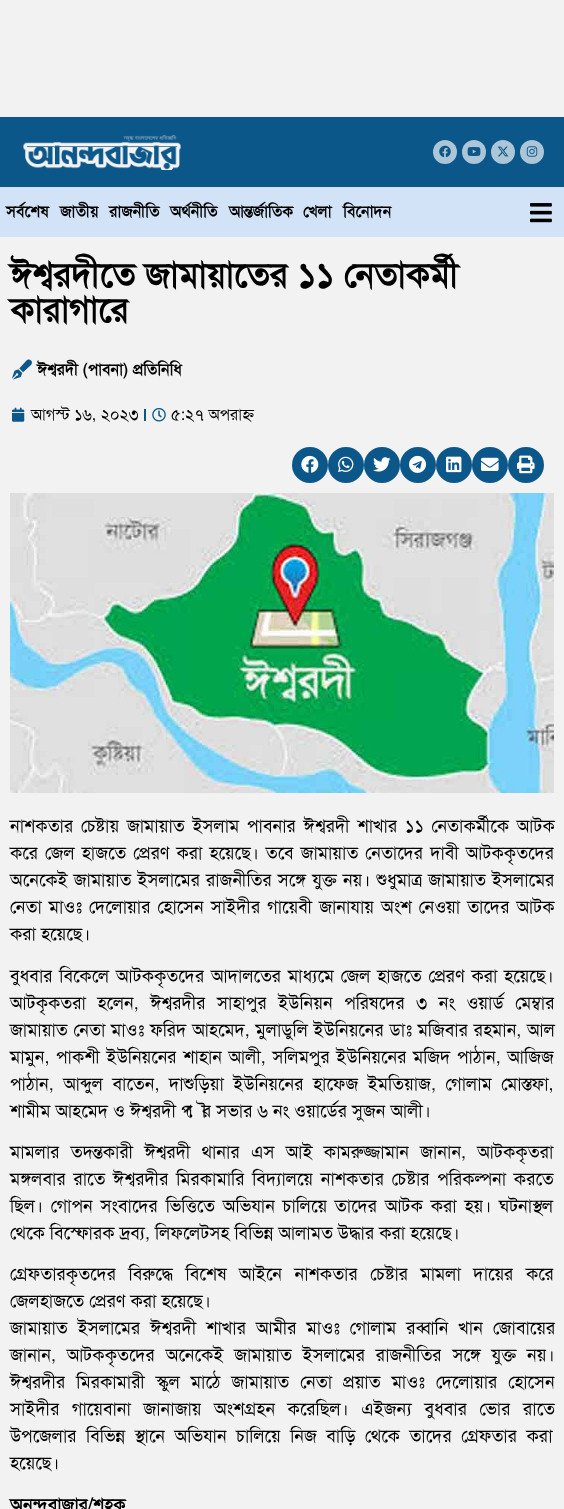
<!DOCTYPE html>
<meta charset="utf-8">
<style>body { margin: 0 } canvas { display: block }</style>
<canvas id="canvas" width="564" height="1509"></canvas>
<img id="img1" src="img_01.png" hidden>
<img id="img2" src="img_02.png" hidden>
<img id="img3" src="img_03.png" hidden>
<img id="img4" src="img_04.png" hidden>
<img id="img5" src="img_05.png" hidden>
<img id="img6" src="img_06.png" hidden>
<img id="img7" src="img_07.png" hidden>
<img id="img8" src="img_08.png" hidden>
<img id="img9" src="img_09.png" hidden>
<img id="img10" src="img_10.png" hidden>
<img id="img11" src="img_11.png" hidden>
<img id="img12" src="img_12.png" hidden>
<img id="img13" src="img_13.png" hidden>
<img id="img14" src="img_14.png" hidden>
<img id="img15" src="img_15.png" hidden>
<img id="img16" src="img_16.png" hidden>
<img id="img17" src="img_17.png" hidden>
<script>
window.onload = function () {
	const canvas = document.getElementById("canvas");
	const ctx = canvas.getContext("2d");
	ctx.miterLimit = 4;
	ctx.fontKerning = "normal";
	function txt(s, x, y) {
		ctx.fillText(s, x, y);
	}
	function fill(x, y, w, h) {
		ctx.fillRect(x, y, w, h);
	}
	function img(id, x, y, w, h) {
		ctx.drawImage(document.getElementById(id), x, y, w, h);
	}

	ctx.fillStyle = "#F2F2F2";
	fill(0, 0, 564, 1509);
	ctx.fillStyle = "#0C578A";
	fill(0, 117, 564, 70);
	img("img1", 22, 135, 159, 35);
	ctx.fillStyle = "#ACC6D7";
	ctx.beginPath();
	ctx.arc(445, 152, 12, 0, Math.PI * 2);
	ctx.fill();
	img("img2", 439, 145, 12, 13);
	ctx.beginPath();
	ctx.arc(474, 152, 12, 0, Math.PI * 2);
	ctx.fill();
	img("img3", 467, 147, 14, 9);
	ctx.beginPath();
	ctx.arc(503, 152, 12, 0, Math.PI * 2);
	ctx.fill();
	img("img4", 497, 146, 12, 11);
	ctx.beginPath();
	ctx.arc(532, 152, 12, 0, Math.PI * 2);
	ctx.fill();
	img("img5", 526, 146, 12, 11);
	ctx.fillStyle = "#D3E3F7";
	fill(0, 187, 564, 50);
	img("img6", 530, 203, 22, 20);
	img("img7", 12, 359, 20, 21);
	img("img8", 12, 407, 13, 15);
	ctx.fillStyle = "#0C578A";
	fill(144, 409, 2, 12);
	img("img9", 152, 408, 14, 14);
	ctx.beginPath();
	ctx.arc(310, 465, 18, 0, Math.PI * 2);
	ctx.fill();
	img("img10", 301, 455, 18, 18);
	ctx.beginPath();
	ctx.arc(346, 465, 18, 0, Math.PI * 2);
	ctx.fill();
	img("img11", 338, 456, 16, 16);
	ctx.beginPath();
	ctx.arc(382, 465, 18, 0, Math.PI * 2);
	ctx.fill();
	img("img12", 373, 457, 18, 15);
	ctx.beginPath();
	ctx.arc(418, 465, 18, 0, Math.PI * 2);
	ctx.fill();
	img("img13", 409, 455, 17, 18);
	ctx.beginPath();
	ctx.arc(454, 465, 18, 0, Math.PI * 2);
	ctx.fill();
	img("img14", 446, 456, 16, 17);
	ctx.beginPath();
	ctx.arc(490, 465, 18, 0, Math.PI * 2);
	ctx.fill();
	img("img15", 481, 457, 18, 14);
	ctx.beginPath();
	ctx.arc(526, 465, 18, 0, Math.PI * 2);
	ctx.fill();
	img("img16", 517, 455, 18, 19);
	img("img17", 10, 493, 544, 300);
	ctx.font = "bold 16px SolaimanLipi";
	ctx.fillStyle = "#000000";
	txt("সর্বশেষ", 6, 217);
	txt("জাতীয়", 60, 217);
	txt("রাজনীতি", 109, 217);
	txt("অর্থনী‌তি", 170, 217);
	txt("আন্তর্জাতিক", 229, 217);
	txt("খেলা", 303, 217);
	txt("বিনোদন", 343, 217);
	ctx.font = "bold 35px SolaimanLipi";
	txt("ঈশ্বরদীতে জামায়াতের ১১ নেতাকর্মী", 10, 287);
	txt("কারাগারে", 10, 322);
	ctx.font = "bold 16px SolaimanLipi";
	txt("ঈশ্বরদী (পাবনা) প্রতিনিধি", 37, 375);
	ctx.font = "16px SolaimanLipi";
	txt("আগস্ট ১৬, ২০২৩", 31, 420);
	txt("৫:২৭ অপরাহ্ণ", 171, 420);
	ctx.wordSpacing = "2.75px";
	ctx.font = "18px SolaimanLipi";
	txt("নাশকতার চেষ্টায় জামায়াত ইসলাম পাবনার ঈশ্বরদী শাখার ১১ নেতাকর্মীকে আটক", 10, 832);
	ctx.wordSpacing = "2px";
	txt("করে জেল হাজতে প্রেরণ করা হয়েছে। তবে জামায়াত নেতাদের দাবী আটককৃতদের", 10, 859);
	ctx.wordSpacing = "1px";
	txt("অনেকেই জামায়াত ইসলামের রাজনীতির সঙ্গে যুক্ত নয়। শুধুমাত্র জামায়াত ইসলামের", 10, 886);
	ctx.wordSpacing = "2px";
	txt("নেতা মাওঃ দেলোয়ার হোসেন সাইদীর গায়েবী জানাযায় অংশ নেওয়া তাদের আটক", 10, 913);
	ctx.wordSpacing = "0px";
	txt("করা হয়েছে।", 10, 940);
	ctx.wordSpacing = "1.75px";
	txt("বুধবার বিকেলে আটককৃতদের আদালতের মাধ্যমে জেল হাজতে প্রেরণ করা হয়েছে।", 10, 982);
	ctx.wordSpacing = "6.5px";
	txt("আটকৃকতরা হলেন, ঈশ্বরদীর সাহাপুর ইউনিয়ন পরিষদের ৩ নং ওয়ার্ড মেম্বার", 10, 1009);
	ctx.wordSpacing = "0.75px";
	txt("জামায়াত নেতা মাওঃ ফরিদ আহমেদ, মুলাডুলি ইউনিয়নের ডাঃ মজিবার রহমান, আল", 10, 1036);
	ctx.wordSpacing = "1.6px";
	txt("মামুন, পাকশী ইউনিয়নের শাহান আলী, সলিমপুর ইউনিয়নের মজিদ পাঠান, আজিজ", 10, 1063);
	ctx.wordSpacing = "4.5px";
	txt("পাঠান, আব্দুল বাতেন, দাশুড়িয়া ইউনিয়নের হাফেজ ইমতিয়াজ, গোলাম মোস্তফা,", 10, 1090);
	ctx.wordSpacing = "0px";
	txt("শামীম আহমেদ ও ঈশ্বরদী পৌর সভার ৬ নং ওয়ার্ডের সুজন আলী।", 10, 1117);
	ctx.wordSpacing = "6.25px";
	txt("মামলার তদন্তকারী ঈশ্বরদী থানার এস আই কামরুজ্জামান জানান, আটককৃতরা", 10, 1158);
	ctx.wordSpacing = "2.75px";
	txt("মঙ্গলবার রাতে ঈশ্বরদীর মিরকামারি বিদ্যালয়ে নাশকতার চেষ্টার পরিকল্পনা করতে", 10, 1185);
	txt("ছিল। গোপন সংবাদের ভিত্তিতে অভিযান চালিয়ে তাদের আটক করা হয়। ঘটনাস্থল", 10, 1212);
	ctx.wordSpacing = "0px";
	txt("থেকে বিস্ফোরক দ্রব্য, লিফলেটসহ বিভিন্ন আলামত উদ্ধার করা হয়েছে।", 10, 1239);
	ctx.wordSpacing = "7.5px";
	txt("গ্রেফতারকৃতদের বিরুদ্ধে বিশেষ আইনে নাশকতার চেষ্টার মামলা দায়ের করে", 10, 1280);
	ctx.wordSpacing = "0px";
	txt("জেলহাজতে প্রেরণ করা হয়েছে।", 10, 1307);
	ctx.wordSpacing = "5px";
	txt("জামায়াত ইসলামের ঈশ্বরদী শাখার আমীর মাওঃ গোলাম রব্বানি খান জোবায়ের", 10, 1334);
	ctx.wordSpacing = "5.75px";
	txt("জানান, আটককৃতদের অনেকেই জামায়াত ইসলামের রাজনীতির সঙ্গে যুক্ত নয়।", 10, 1361);
	ctx.wordSpacing = "6px";
	txt("ঈশ্বরদীর মিরকামারী স্কুল মাঠে জামায়াত নেতা প্রয়াত মাওঃ দেলোয়ার হোসেন", 10, 1388);
	ctx.wordSpacing = "7.5px";
	txt("সাইদীর গায়েবানা জানাজায় অংশগ্রহন করেছিল। এইজন্য বুধবার ভোর রাতে", 10, 1415);
	ctx.wordSpacing = "4.5px";
	txt("উপজেলার বিভিন্ন স্থানে অভিযান চালিয়ে নিজ বাড়ি থেকে তাদের গ্রেফতার করা", 10, 1442);
	ctx.wordSpacing = "0px";
	txt("হয়েছে।", 10, 1469);
	ctx.font = "bold 18px SolaimanLipi";
	txt("অনন্দবাজার/শহক", 10, 1511);
};
</script>
